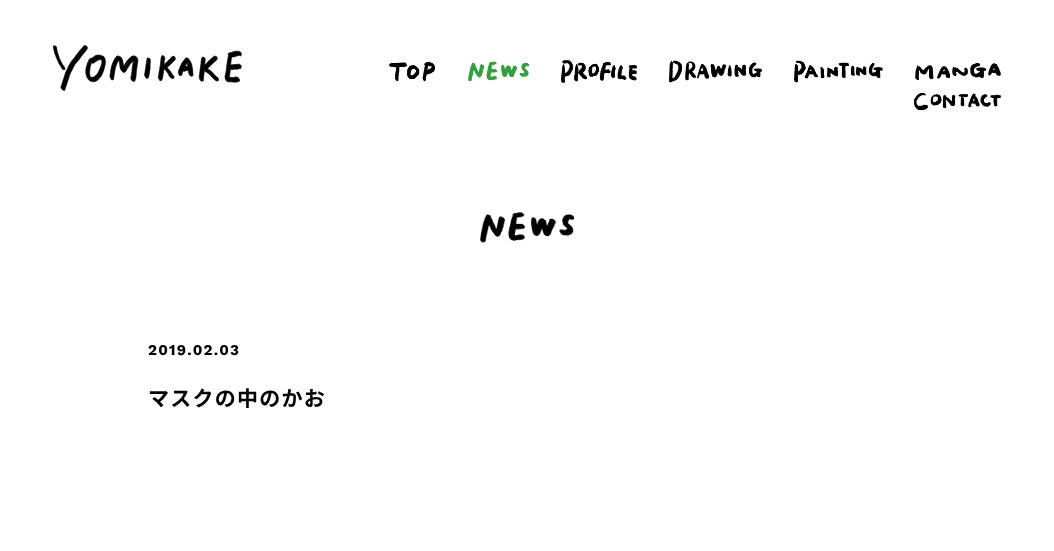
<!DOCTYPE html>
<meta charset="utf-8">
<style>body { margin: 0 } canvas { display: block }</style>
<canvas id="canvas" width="1054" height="551"></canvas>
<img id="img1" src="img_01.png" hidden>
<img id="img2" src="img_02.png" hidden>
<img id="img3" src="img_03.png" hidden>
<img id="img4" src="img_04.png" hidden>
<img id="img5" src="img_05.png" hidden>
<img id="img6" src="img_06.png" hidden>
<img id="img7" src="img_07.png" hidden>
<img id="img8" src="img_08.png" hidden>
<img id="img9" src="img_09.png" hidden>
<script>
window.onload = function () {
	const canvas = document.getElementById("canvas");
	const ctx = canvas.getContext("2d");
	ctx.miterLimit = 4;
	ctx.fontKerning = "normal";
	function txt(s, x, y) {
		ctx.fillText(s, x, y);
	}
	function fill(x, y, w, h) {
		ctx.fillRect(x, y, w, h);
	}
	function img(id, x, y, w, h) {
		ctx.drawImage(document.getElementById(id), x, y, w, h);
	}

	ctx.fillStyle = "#FFFFFF";
	fill(0, 0, 1054, 551);
	img("img1", 53, 45, 189, 46);
	img("img2", 389, 61, 46, 21);
	img("img3", 468, 61, 61, 21);
	img("img4", 561, 60, 76, 23);
	img("img5", 669, 60, 93, 23);
	img("img6", 794, 60, 89, 23);
	img("img7", 915, 62, 86, 19);
	img("img8", 914, 92, 87, 19);
	img("img9", 480, 211, 94, 32);
	ctx.letterSpacing = "1.25px";
	ctx.font = "bold 15px Work Sans";
	ctx.fillStyle = "#000000";
	txt("2019.02.03", 148, 355);
	ctx.font = "bold 21px Noto Sans JP";
	txt("マスクの中のかお", 148, 406);
};
</script>
